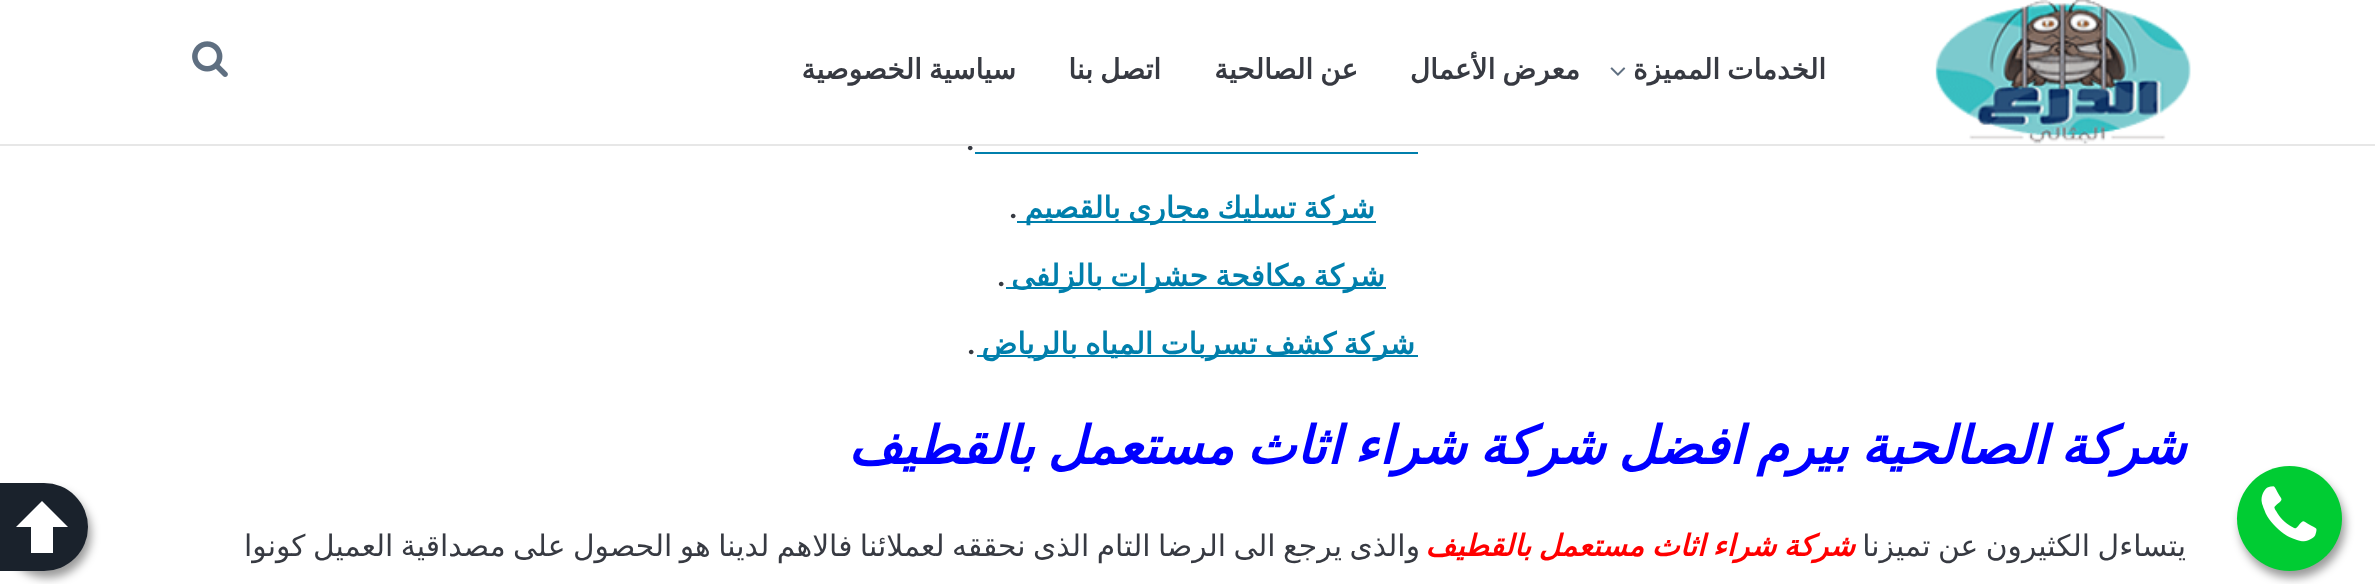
<!DOCTYPE html>
<meta charset="utf-8">
<style>body { margin: 0 } canvas { display: block }</style>
<canvas id="canvas" width="2375" height="584"></canvas>
<img id="img1" src="img_01.png" hidden>
<img id="img2" src="img_02.png" hidden>
<img id="img3" src="img_03.png" hidden>
<img id="img4" src="img_04.png" hidden>
<script>
window.onload = function () {
	const canvas = document.getElementById("canvas");
	const ctx = canvas.getContext("2d");
	ctx.miterLimit = 4;
	ctx.fontKerning = "normal";
	function txt(s, x, y) {
		ctx.fillText(s, x, y);
	}
	function fill(x, y, w, h) {
		ctx.fillRect(x, y, w, h);
	}
	function img(id, x, y, w, h) {
		ctx.drawImage(document.getElementById(id), x, y, w, h);
	}

	ctx.fillStyle = "#FFFFFF";
	fill(0, 0, 2375, 584);
	img("img1", 1935, 0, 256, 144);
	img("img2", 1610, 67, 16, 9);
	img("img3", 192, 41, 36, 36);
	ctx.fillStyle = "#007FAC";
	fill(975, 152, 443, 2);
	fill(1017, 221, 359, 2);
	fill(1006, 287, 380, 2);
	fill(977, 355, 441, 2);
	ctx.fillStyle = "rgba(0, 0, 0, 0.4)";
	ctx.filter = "blur(5px)";
	ctx.beginPath();
	ctx.roundRect(2240, 473, 105, 105, 52.5);
	ctx.fill();
	ctx.filter = "none";
	ctx.fillStyle = "#00CC33";
	ctx.beginPath();
	ctx.arc(2289.5, 518.5, 52.5, 0, Math.PI * 2);
	ctx.fill();
	img("img4", 2261, 486, 56, 56);
	ctx.fillStyle = "rgba(0, 0, 0, 0.4)";
	ctx.filter = "blur(5px)";
	ctx.beginPath();
	ctx.roundRect(4, 490, 87, 88, 43.5);
	ctx.fill();
	ctx.filter = "none";
	ctx.fillStyle = "#1A222C";
	ctx.beginPath();
	ctx.roundRect(0, 483, 88, 88, [0, 44, 44, 0]);
	ctx.fill();
	ctx.fillStyle = "#FFFFFF";
	ctx.beginPath();
	ctx.moveTo(42, 501);
	ctx.lineTo(68, 527);
	ctx.lineTo(53, 527);
	ctx.lineTo(53, 553);
	ctx.lineTo(31, 553);
	ctx.lineTo(31, 527);
	ctx.lineTo(16, 527);
	ctx.closePath();
	ctx.fill();
	ctx.wordSpacing = "-2px";
	ctx.direction = "rtl";
	ctx.font = "bold 28px DejaVu Sans";
	ctx.fillStyle = "#373A42";
	txt("الخدمات المميزة", 1826, 79);
	txt("معرض الأعمال", 1580, 79);
	txt("عن الصالحية", 1358, 79);
	txt("اتصل بنا", 1161, 79);
	txt("سياسية الخصوصية", 1016, 79);
	ctx.wordSpacing = "0px";
	ctx.direction = "ltr";
	ctx.font = "bold 29.75px Roboto";
	txt(".", 966, 150);
	ctx.fillStyle = "#E7E7E7";
	fill(0, 144, 2375, 2);
	ctx.wordSpacing = "-2px";
	ctx.direction = "rtl";
	ctx.font = "bold 29.75px DejaVu Sans";
	ctx.fillStyle = "#007FAC";
	txt("شركة تسليك مجارى بالقصيم", 1375, 218);
	ctx.wordSpacing = "0px";
	ctx.direction = "ltr";
	ctx.font = "bold 29.75px Roboto";
	ctx.fillStyle = "#373A42";
	txt(".", 1009, 218);
	ctx.wordSpacing = "-2px";
	ctx.direction = "rtl";
	ctx.font = "bold 29.75px DejaVu Sans";
	ctx.fillStyle = "#007FAC";
	txt("شركة مكافحة حشرات بالزلفى", 1385, 286);
	ctx.wordSpacing = "0px";
	ctx.direction = "ltr";
	ctx.font = "bold 29.75px Roboto";
	ctx.fillStyle = "#373A42";
	txt(".", 997, 286);
	ctx.wordSpacing = "-2px";
	ctx.direction = "rtl";
	ctx.font = "bold 29.75px DejaVu Sans";
	ctx.fillStyle = "#007FAC";
	txt("شركة كشف تسربات المياه بالرياض", 1415, 354);
	ctx.wordSpacing = "0px";
	ctx.direction = "ltr";
	ctx.font = "bold 29.75px Roboto";
	ctx.fillStyle = "#373A42";
	txt(".", 967, 354);
	ctx.wordSpacing = "-3.75px";
	ctx.direction = "rtl";
	ctx.font = "italic bold 52.5px DejaVu Sans";
	ctx.fillStyle = "#0000FF";
	txt("شركة الصالحية بيرم افضل شركة شراء اثاث مستعمل بالقطيف", 2186, 464);
	ctx.wordSpacing = "-2px";
	ctx.font = "29.75px DejaVu Sans";
	ctx.fillStyle = "#373A42";
	txt("يتساءل الكثيرون عن تميزنا", 2186, 556);
	ctx.font = "italic bold 29.75px DejaVu Sans";
	ctx.fillStyle = "#FF0000";
	txt("شركة شراء اثاث مستعمل بالقطيف", 1855, 556);
	ctx.font = "29.75px DejaVu Sans";
	ctx.fillStyle = "#373A42";
	txt("والذى يرجع الى الرضا التام الذى نحققه لعملائنا فالاهم لدينا هو الحصول على مصداقية العميل كونوا", 1420, 556);
};
</script>
